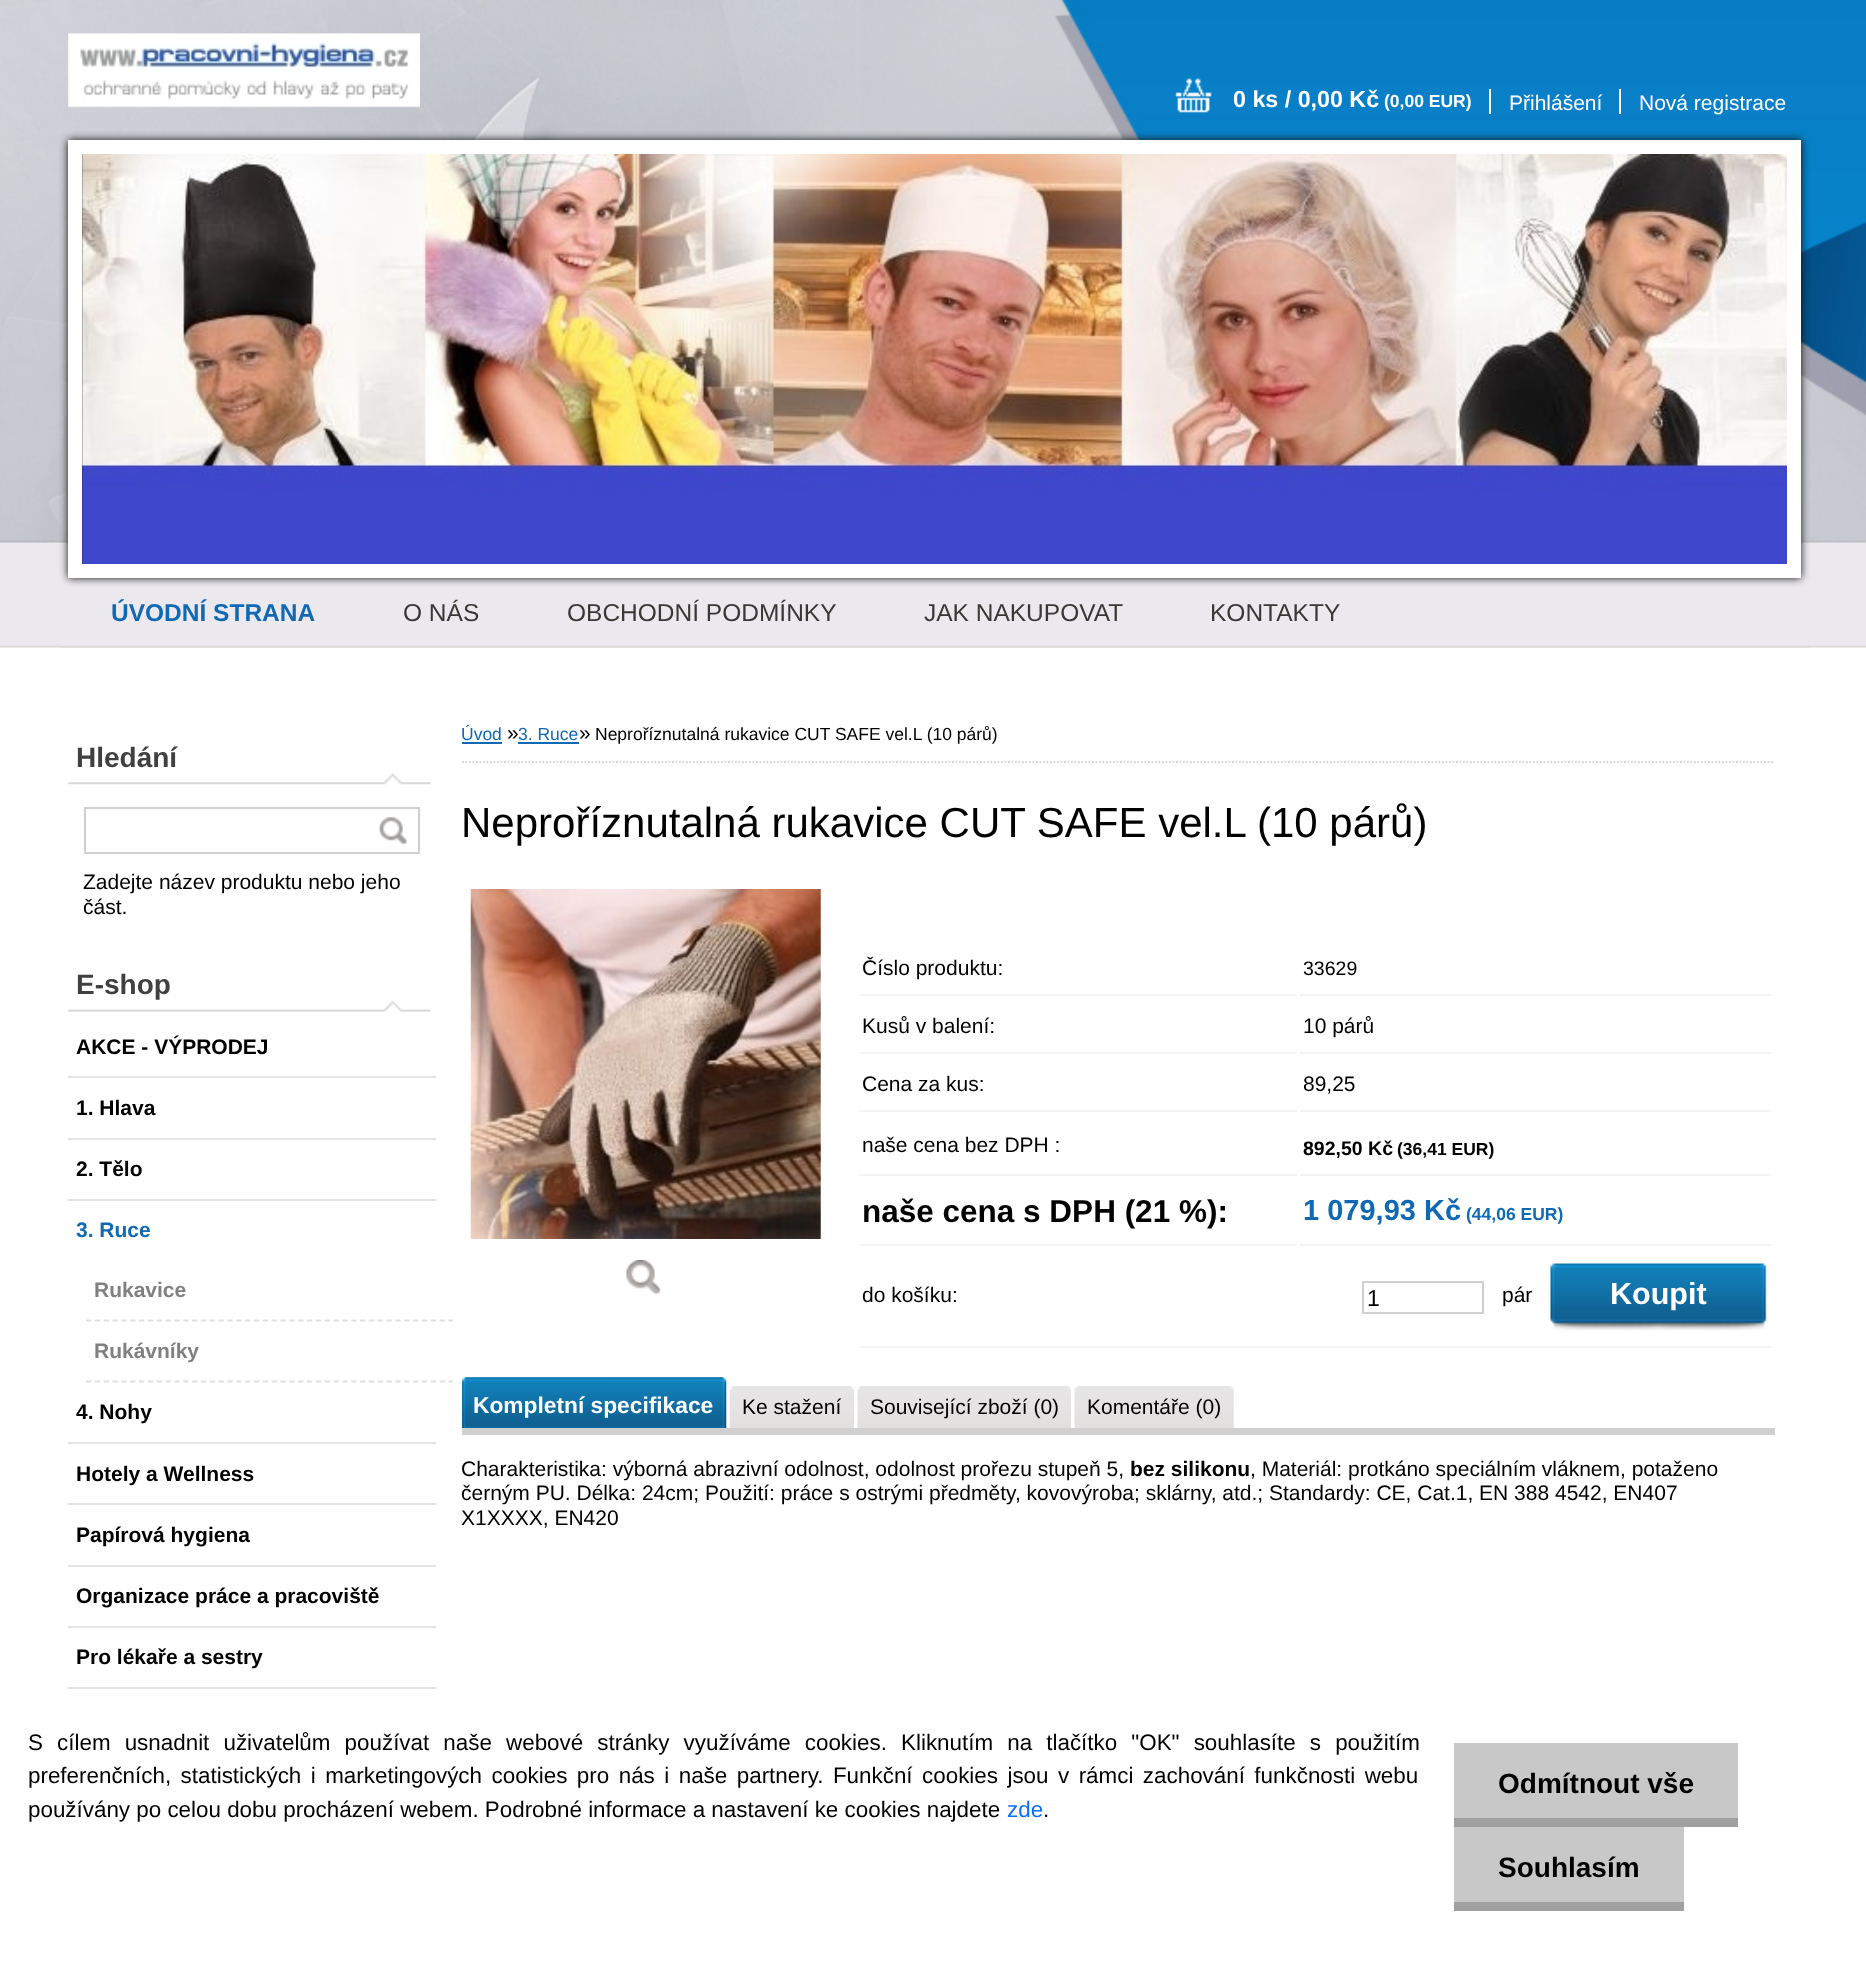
<!DOCTYPE html>
<meta charset="utf-8">
<style>body { margin: 0 } canvas { display: block }</style>
<canvas id="canvas" width="1866" height="1965"></canvas>
<img id="img1" src="img_01.png" hidden>
<img id="img2" src="img_02.png" hidden>
<img id="img3" src="img_03.png" hidden>
<img id="img4" src="img_04.png" hidden>
<img id="img5" src="img_05.png" hidden>
<img id="img6" src="img_06.png" hidden>
<img id="img7" src="img_07.png" hidden>
<img id="img8" src="img_08.png" hidden>
<img id="img9" src="img_09.png" hidden>
<img id="img10" src="img_10.png" hidden>
<img id="img11" src="img_11.png" hidden>
<img id="img12" src="img_12.png" hidden>
<img id="img13" src="img_13.png" hidden>
<img id="img14" src="img_14.png" hidden>
<img id="img15" src="img_15.png" hidden>
<img id="img16" src="img_16.png" hidden>
<img id="img17" src="img_17.png" hidden>
<img id="img18" src="img_18.png" hidden>
<img id="img19" src="img_19.png" hidden>
<script>
window.onload = function () {
	const canvas = document.getElementById("canvas");
	const ctx = canvas.getContext("2d");
	ctx.miterLimit = 4;
	ctx.fontKerning = "normal";
	function txt(s, x, y) {
		ctx.fillText(s, x, y);
	}
	function fill(x, y, w, h) {
		ctx.fillRect(x, y, w, h);
	}
	function img(id, x, y, w, h) {
		ctx.drawImage(document.getElementById(id), x, y, w, h);
	}

	ctx.fillStyle = "#FFFFFF";
	fill(0, 0, 1866, 1965);
	img("img1", 0, 0, 1866, 648);
	img("img2", 59, 0, 1751, 648);
	ctx.fillStyle = "#0D0D0C";
	ctx.filter = "blur(4.5px)";
	ctx.beginPath();
	ctx.rect(68, 140, 1733, 438);
	ctx.fill();
	ctx.filter = "none";
	img("img3", 82, 154, 1705, 410);
	ctx.strokeStyle = "#FFFFFF";
	ctx.lineWidth = 14;
	ctx.strokeRect(75, 147, 1719, 424);
	img("img4", 68, 33, 352, 75);
	img("img5", 1175, 78, 37, 35);
	ctx.fillStyle = "#FFFFFF";
	fill(1489, 89, 2, 25);
	fill(1619, 89, 2, 25);
	img("img6", 68, 773, 363, 12);
	ctx.strokeStyle = "#D0D0D0";
	ctx.lineWidth = 2;
	ctx.strokeRect(85, 808, 334, 45);
	img("img7", 379, 816, 29, 29);
	img("img8", 68, 1000, 363, 12);
	ctx.fillStyle = "#E5E5E6";
	fill(68, 1076, 368, 2);
	fill(68, 1138, 368, 2);
	fill(68, 1199, 368, 2);
	ctx.beginPath();
	ctx.moveTo(86, 1320.5);
	ctx.lineTo(453, 1320.5);
	ctx.strokeStyle = "#E0DFDD";
	ctx.lineWidth = 1.8;
	ctx.setLineDash([5.25, 3.59]);
	ctx.stroke();
	ctx.beginPath();
	ctx.moveTo(86, 1381.5);
	ctx.lineTo(453, 1381.5);
	ctx.stroke();
	fill(68, 1442, 368, 2);
	fill(68, 1503, 368, 2);
	fill(68, 1565, 368, 2);
	fill(68, 1626, 368, 2);
	fill(68, 1687, 368, 2);
	ctx.beginPath();
	ctx.moveTo(462, 762);
	ctx.lineTo(1774.5, 762);
	ctx.strokeStyle = "#D3D5DA";
	ctx.setLineDash([1.75, 1.75]);
	ctx.stroke();
	ctx.fillStyle = "#1069B4";
	fill(462, 742, 40, 2);
	fill(518, 742, 61, 2);
	img("img9", 470, 889, 351, 350);
	img("img10", 626, 1260, 35, 35);
	ctx.fillStyle = "#F5F4F5";
	fill(859, 994, 438, 2);
	fill(1300, 994, 471, 2);
	fill(859, 1052, 438, 2);
	fill(1300, 1052, 471, 2);
	fill(859, 1110, 438, 2);
	fill(1300, 1110, 471, 2);
	fill(859, 1174, 438, 2);
	fill(1300, 1174, 471, 2);
	fill(859, 1244, 438, 2);
	fill(1300, 1244, 471, 2);
	fill(859, 1346, 912, 2);
	ctx.strokeStyle = "#D0D0D0";
	ctx.lineWidth = 2;
	ctx.setLineDash([]);
	ctx.strokeRect(1363, 1282, 120, 31);
	img("img11", 1550, 1263, 217, 68);
	img("img12", 462, 1377, 261, 51);
	img("img13", 465, 1377, 262, 51);
	img("img14", 729, 1386, 122, 42);
	img("img15", 733, 1386, 121, 42);
	img("img16", 857, 1386, 211, 42);
	img("img17", 861, 1386, 210, 42);
	img("img18", 1074, 1386, 157, 42);
	img("img19", 1078, 1386, 156, 42);
	ctx.fillStyle = "#D0D0D0";
	fill(462, 1428, 1313, 7);
	ctx.fillStyle = "#C8C8C8";
	fill(1454, 1743, 284, 75);
	ctx.fillStyle = "#A0A0A0";
	fill(1454, 1818, 284, 9);
	ctx.fillStyle = "#C8C8C8";
	fill(1454, 1827, 230, 75);
	ctx.fillStyle = "#A0A0A0";
	fill(1454, 1902, 230, 9);
	ctx.font = "bold 23.25px Liberation Sans";
	ctx.fillStyle = "#FFFFFF";
	txt("0 ks / 0,00 Kč", 1233, 107);
	ctx.font = "bold 17.5px Liberation Sans";
	txt("(0,00 EUR)", 1384, 107);
	ctx.font = "21px Liberation Sans";
	txt("Přihlášení", 1509, 110);
	txt("Nová registrace", 1639, 110);
	ctx.font = "bold 24.5px Liberation Sans";
	ctx.fillStyle = "#1069B4";
	txt("ÚVODNÍ STRANA", 111, 621);
	ctx.font = "24.5px Liberation Sans";
	ctx.fillStyle = "#3A3734";
	txt("O NÁS", 403, 621);
	txt("OBCHODNÍ PODMÍNKY", 567, 621);
	txt("JAK NAKUPOVAT", 924, 621);
	txt("KONTAKTY", 1210, 621);
	ctx.font = "bold 28px Liberation Sans";
	ctx.fillStyle = "#404040";
	txt("Hledání", 76, 767);
	ctx.font = "21px Liberation Sans";
	ctx.fillStyle = "#000000";
	txt("Zadejte název produktu nebo jeho", 83, 889);
	txt("část.", 83, 914);
	ctx.font = "bold 28px Liberation Sans";
	ctx.fillStyle = "#404040";
	txt("E-shop", 76, 994);
	ctx.font = "bold 21px Liberation Sans";
	ctx.fillStyle = "#000000";
	txt("AKCE - VÝPRODEJ", 76, 1054);
	txt("1. Hlava", 76, 1115);
	txt("2. Tělo", 76, 1176);
	ctx.fillStyle = "#1069B4";
	txt("3. Ruce", 76, 1237);
	ctx.fillStyle = "#808080";
	txt("Rukavice", 94, 1297);
	txt("Rukávníky", 94, 1358);
	ctx.fillStyle = "#000000";
	txt("4. Nohy", 76, 1419);
	txt("Hotely a Wellness", 76, 1481);
	txt("Papírová hygiena", 76, 1542);
	txt("Organizace práce a pracoviště", 76, 1603);
	txt("Pro lékaře a sestry", 76, 1664);
	ctx.font = "17.5px Liberation Sans";
	ctx.fillStyle = "#1069B4";
	txt("Úvod", 461, 740);
	ctx.font = "21px Liberation Sans";
	ctx.fillStyle = "#000000";
	txt("»", 507, 740);
	ctx.font = "17.5px Liberation Sans";
	ctx.fillStyle = "#1069B4";
	txt("3. Ruce", 518, 740);
	ctx.font = "21px Liberation Sans";
	ctx.fillStyle = "#000000";
	txt("»", 579, 740);
	ctx.font = "17.5px Liberation Sans";
	txt("Neproříznutalná rukavice CUT SAFE vel.L (10 párů)", 595, 740);
	ctx.font = "42px Liberation Sans";
	txt("Neproříznutalná rukavice CUT SAFE vel.L (10 párů)", 461, 837);
	ctx.font = "21px Liberation Sans";
	txt("Číslo produktu:", 862, 975);
	ctx.font = "19.5px Liberation Sans";
	txt("33629", 1303, 975);
	ctx.font = "21px Liberation Sans";
	txt("Kusů v balení:", 862, 1033);
	txt("10 párů", 1303, 1033);
	txt("Cena za kus:", 862, 1091);
	txt("89,25", 1303, 1091);
	txt("naše cena bez DPH :", 862, 1152);
	ctx.font = "bold 19.5px Liberation Sans";
	txt("892,50 Kč", 1303, 1155);
	ctx.font = "bold 17.5px Liberation Sans";
	txt("(36,41 EUR)", 1397, 1155);
	ctx.font = "bold 31.5px Liberation Sans";
	txt("naše cena s DPH (21 %):", 862, 1222);
	ctx.font = "bold 29px Liberation Sans";
	ctx.fillStyle = "#1069B4";
	txt("1 079,93 Kč", 1303, 1220);
	ctx.font = "bold 17.5px Liberation Sans";
	txt("(44,06 EUR)", 1466, 1220);
	ctx.font = "21px Liberation Sans";
	ctx.fillStyle = "#000000";
	txt("do košíku:", 862, 1302);
	ctx.font = "23px Liberation Sans";
	txt("1", 1367, 1306);
	ctx.font = "21px Liberation Sans";
	txt("pár", 1502, 1302);
	ctx.font = "bold 30.5px Liberation Sans";
	ctx.fillStyle = "#FFFFFF";
	txt("Koupit", 1610, 1304);
	ctx.font = "bold 22.75px Liberation Sans";
	txt("Kompletní specifikace", 473, 1413);
	ctx.font = "21px Liberation Sans";
	ctx.fillStyle = "#000000";
	txt("Ke stažení", 742, 1414);
	txt("Související zboží (0)", 870, 1414);
	txt("Komentáře (0)", 1087, 1414);
	txt("Charakteristika: výborná abrazivní odolnost, odolnost prořezu stupeň 5,", 461, 1476);
	ctx.font = "bold 21px Liberation Sans";
	txt("bez silikonu", 1130, 1476);
	ctx.font = "21px Liberation Sans";
	txt(", Materiál: protkáno speciálním vláknem, potaženo", 1250, 1476);
	txt("černým PU. Délka: 24cm; Použití: práce s ostrými předměty, kovovýroba; sklárny, atd.; Standardy: CE, Cat.1, EN 388 4542, EN407", 461, 1500);
	txt("X1XXXX, EN420", 461, 1525);
	ctx.wordSpacing = "7.9px";
	ctx.font = "22.4px Liberation Sans";
	txt("S cílem usnadnit uživatelům používat naše webové stránky využíváme cookies. Kliknutím na tlačítko \"OK\" souhlasíte s použitím", 28, 1750);
	ctx.wordSpacing = "3.25px";
	txt("preferenčních, statistických i marketingových cookies pro nás i naše partnery. Funkční cookies jsou v rámci zachování funkčnosti webu", 28, 1783);
	ctx.wordSpacing = "0px";
	txt("používány po celou dobu procházení webem. Podrobné informace a nastavení ke cookies najdete", 28, 1817);
	ctx.fillStyle = "#0D6EFD";
	txt("zde", 1007, 1817);
	ctx.fillStyle = "#000000";
	txt(".", 1043, 1817);
	ctx.font = "bold 28px Liberation Sans";
	txt("Odmítnout vše", 1498, 1793);
	txt("Souhlasím", 1498, 1877);
};
</script>
